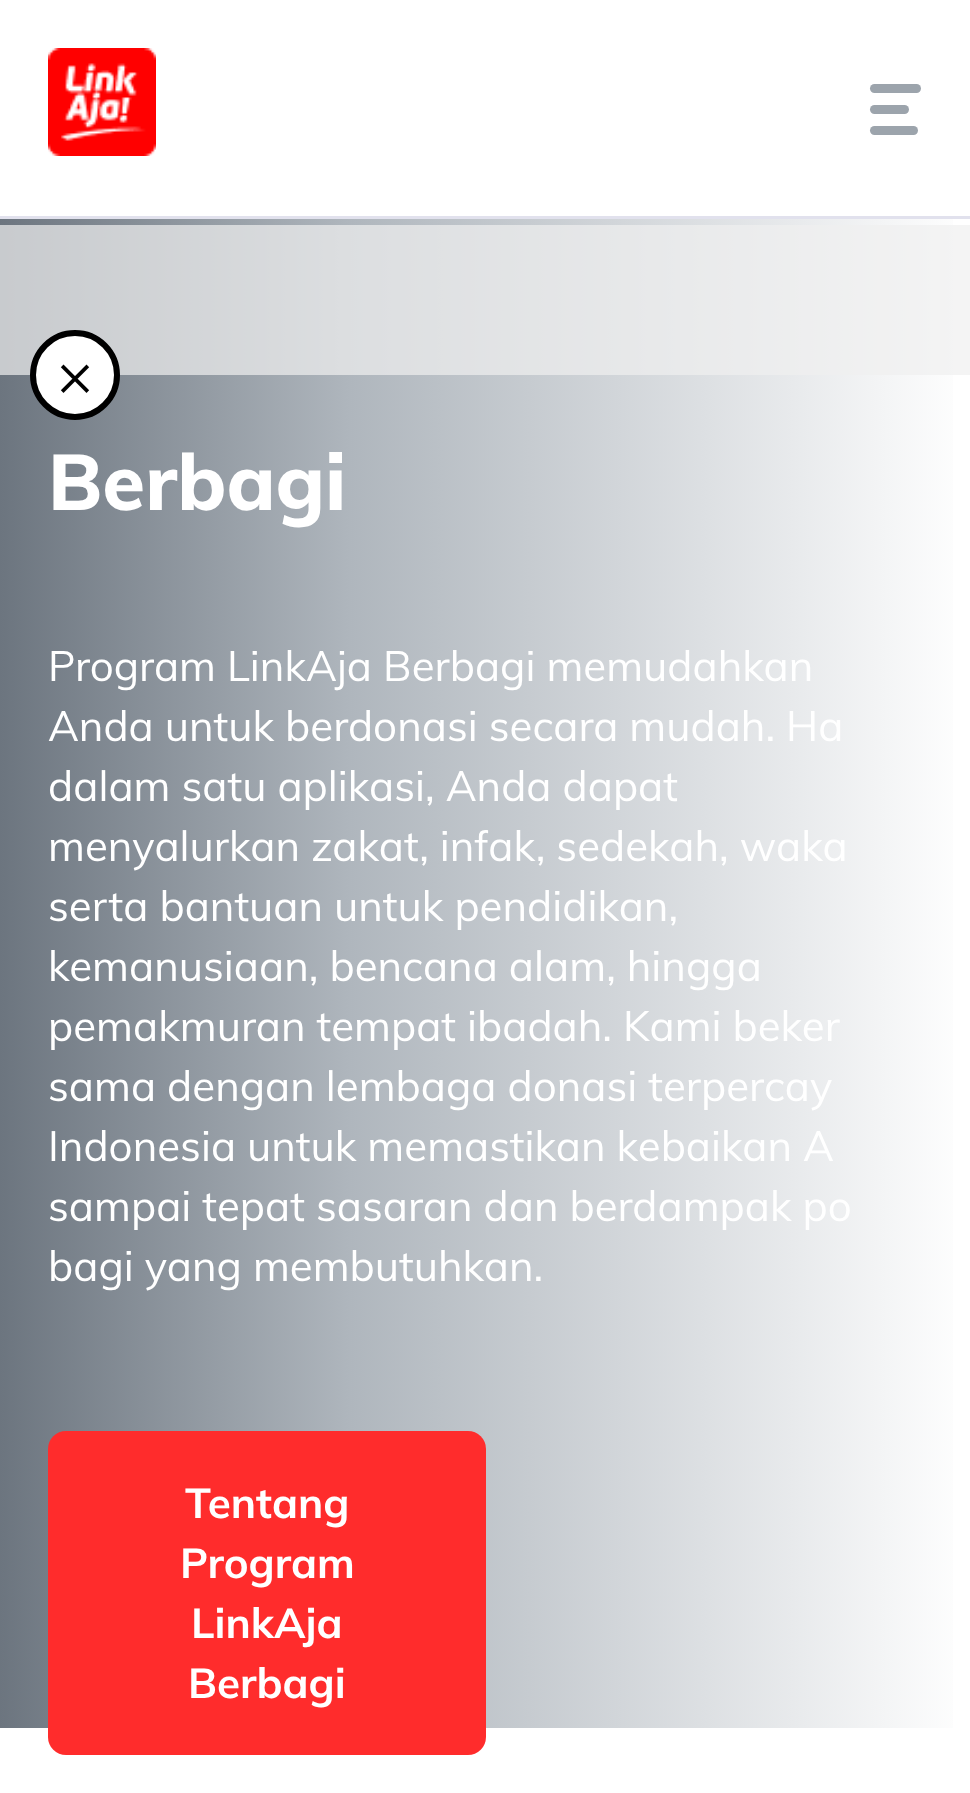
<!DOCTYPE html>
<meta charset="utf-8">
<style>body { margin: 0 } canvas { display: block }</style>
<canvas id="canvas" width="970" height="1793"></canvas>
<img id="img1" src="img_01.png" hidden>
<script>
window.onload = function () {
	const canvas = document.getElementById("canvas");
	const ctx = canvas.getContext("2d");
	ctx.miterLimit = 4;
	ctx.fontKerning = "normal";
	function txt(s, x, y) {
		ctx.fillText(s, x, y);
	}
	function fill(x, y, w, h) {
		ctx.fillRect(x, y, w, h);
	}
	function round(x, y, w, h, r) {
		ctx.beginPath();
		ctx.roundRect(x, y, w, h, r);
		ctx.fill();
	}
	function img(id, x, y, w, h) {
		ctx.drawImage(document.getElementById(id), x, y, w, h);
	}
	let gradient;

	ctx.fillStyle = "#FFFFFF";
	fill(0, 0, 970, 1793);
	gradient = ctx.createLinearGradient(0, 972, 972, 972);
	gradient.addColorStop(0, "#6C757F");
	gradient.addColorStop(0.36, "#AFB6BD");
	gradient.addColorStop(1, "#FFFFFF");
	ctx.fillStyle = gradient;
	fill(0, 219, 953, 1509);
	ctx.fillStyle = "rgba(240, 240, 240, 0.7)";
	fill(0, 225, 970, 150);
	ctx.fillStyle = "#FFFFFF";
	ctx.beginPath();
	ctx.arc(75, 375, 42, 0, Math.PI * 2);
	ctx.fill();
	ctx.strokeStyle = "#000000";
	ctx.lineWidth = 6;
	ctx.stroke();
	img("img1", 48, 48, 108, 108);
	ctx.fillStyle = "#9CA4AC";
	round(870, 105, 39, 9, 4.5);
	round(870, 84, 51, 9, 4.5);
	round(870, 126, 48, 9, 4.5);
	ctx.fillStyle = "#E1E1ED";
	fill(0, 216, 970, 3);
	ctx.fillStyle = "#FF2C2C";
	round(48, 1431, 438, 324, 18);
	ctx.font = "60px Mulish";
	ctx.fillStyle = "#000000";
	txt("×", 57, 396);
	ctx.font = "800 78px Mulish";
	ctx.fillStyle = "#FFFFFF";
	txt("Berbagi", 48, 510);
	ctx.font = "42px Mulish";
	txt("Program LinkAja Berbagi memudahkan", 48, 681);
	txt("Anda untuk berdonasi secara mudah. Ha", 48, 741);
	txt("dalam satu aplikasi, Anda dapat", 48, 801);
	txt("menyalurkan zakat, infak, sedekah, waka", 48, 861);
	txt("serta bantuan untuk pendidikan,", 48, 921);
	txt("kemanusiaan, bencana alam, hingga", 48, 981);
	txt("pemakmuran tempat ibadah. Kami beker", 48, 1041);
	txt("sama dengan lembaga donasi terpercay", 48, 1101);
	txt("Indonesia untuk memastikan kebaikan A", 48, 1161);
	txt("sampai tepat sasaran dan berdampak po", 48, 1221);
	txt("bagi yang membutuhkan.", 48, 1281);
	ctx.font = "bold 42px Mulish";
	txt("Tentang", 185, 1518);
	txt("Program", 180, 1578);
	txt("LinkAja", 191, 1638);
	txt("Berbagi", 188, 1698);
};
</script>
